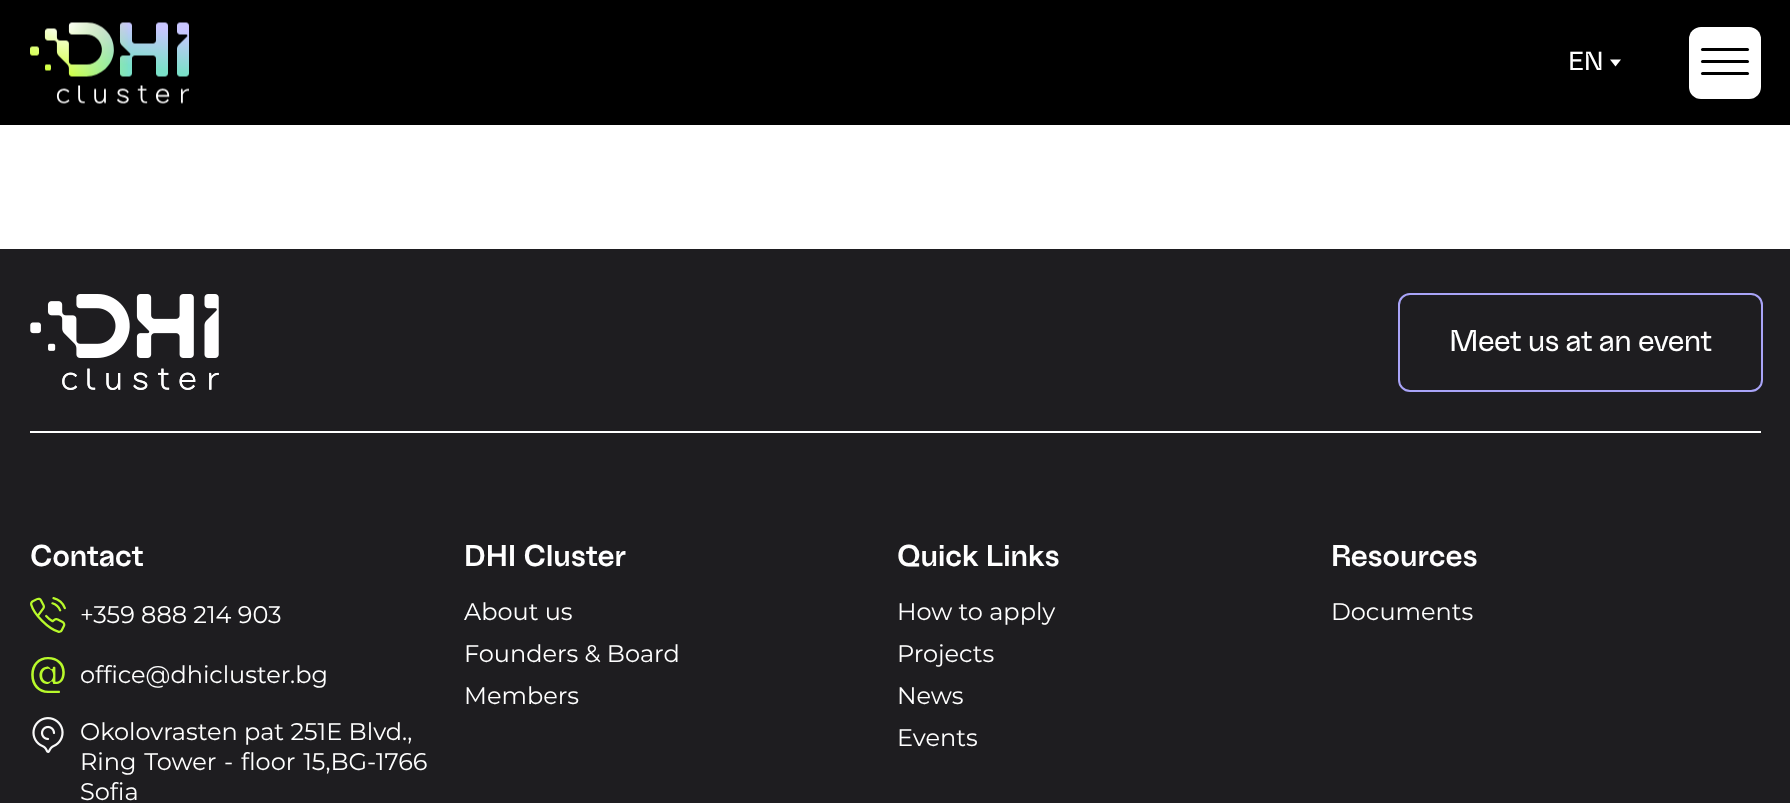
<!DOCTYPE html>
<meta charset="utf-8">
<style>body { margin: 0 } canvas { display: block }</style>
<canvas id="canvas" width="1790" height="803"></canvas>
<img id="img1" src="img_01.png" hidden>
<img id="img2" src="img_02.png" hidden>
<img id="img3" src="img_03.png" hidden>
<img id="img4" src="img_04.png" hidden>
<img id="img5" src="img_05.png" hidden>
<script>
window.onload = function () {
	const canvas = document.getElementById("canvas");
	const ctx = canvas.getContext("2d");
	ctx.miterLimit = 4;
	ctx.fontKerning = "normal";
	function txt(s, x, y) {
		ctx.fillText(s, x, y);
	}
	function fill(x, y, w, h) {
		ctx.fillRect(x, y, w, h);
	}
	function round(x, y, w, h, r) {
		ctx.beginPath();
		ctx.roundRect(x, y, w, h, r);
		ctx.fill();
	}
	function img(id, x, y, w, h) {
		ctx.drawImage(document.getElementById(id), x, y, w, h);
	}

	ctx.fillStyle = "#FFFFFF";
	fill(0, 0, 1790, 803);
	ctx.fillStyle = "#000000";
	fill(0, 0, 1790, 125);
	img("img1", 30, 22, 159, 82);
	ctx.fillStyle = "#FFFFFF";
	ctx.beginPath();
	ctx.moveTo(1615.5, 66.5);
	ctx.lineTo(1610, 59.5);
	ctx.lineTo(1621, 59.5);
	ctx.closePath();
	ctx.fill();
	round(1689, 27, 72, 72, 12);
	ctx.fillStyle = "#000000";
	round(1701, 48, 48, 3, 1.5);
	round(1701, 60, 48, 3, 1.5);
	round(1701, 72, 48, 3, 1.5);
	ctx.fillStyle = "#1E1D20";
	fill(0, 249, 1790, 554);
	ctx.fillStyle = "#FFFFFF";
	fill(30, 431, 1731, 2);
	img("img2", 30, 294, 189, 96);
	ctx.beginPath();
	ctx.roundRect(1399, 294, 363, 97, 11);
	ctx.strokeStyle = "#A9A4F8";
	ctx.lineWidth = 2;
	ctx.stroke();
	img("img3", 30, 597, 36, 36);
	img("img4", 31, 657, 34, 36);
	img("img5", 32, 717, 32, 36);
	ctx.font = "26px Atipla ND";
	txt("EN", 1568, 70);
	ctx.letterSpacing = "-0.6px";
	ctx.font = "30px Atipla ND";
	txt("Meet us at an event", 1449, 351);
	ctx.letterSpacing = "0px";
	ctx.font = "600 30px Atipla ND";
	txt("Contact", 30, 566);
	ctx.font = "24px Montserrat";
	txt("+359 888 214 903", 80, 623);
	txt("office@dhicluster.bg", 80, 683);
	txt("Okolovrasten pat 251E Blvd.,", 80, 740);
	ctx.wordSpacing = "1.5px";
	txt("Ring Tower - floor 15,BG-1766", 80, 770);
	ctx.wordSpacing = "0px";
	txt("Sofia", 80, 800);
	ctx.font = "600 30px Atipla ND";
	txt("DHI Cluster", 464, 566);
	ctx.font = "24px Montserrat";
	txt("About us", 464, 620);
	txt("Founders & Board", 464, 662);
	txt("Members", 464, 704);
	ctx.font = "600 30px Atipla ND";
	txt("Quick Links", 897, 566);
	ctx.font = "24px Montserrat";
	txt("How to apply", 897, 620);
	txt("Projects", 897, 662);
	txt("News", 897, 704);
	txt("Events", 897, 746);
	ctx.font = "600 30px Atipla ND";
	txt("Resources", 1331, 566);
	ctx.font = "24px Montserrat";
	txt("Documents", 1331, 620);
};
</script>
